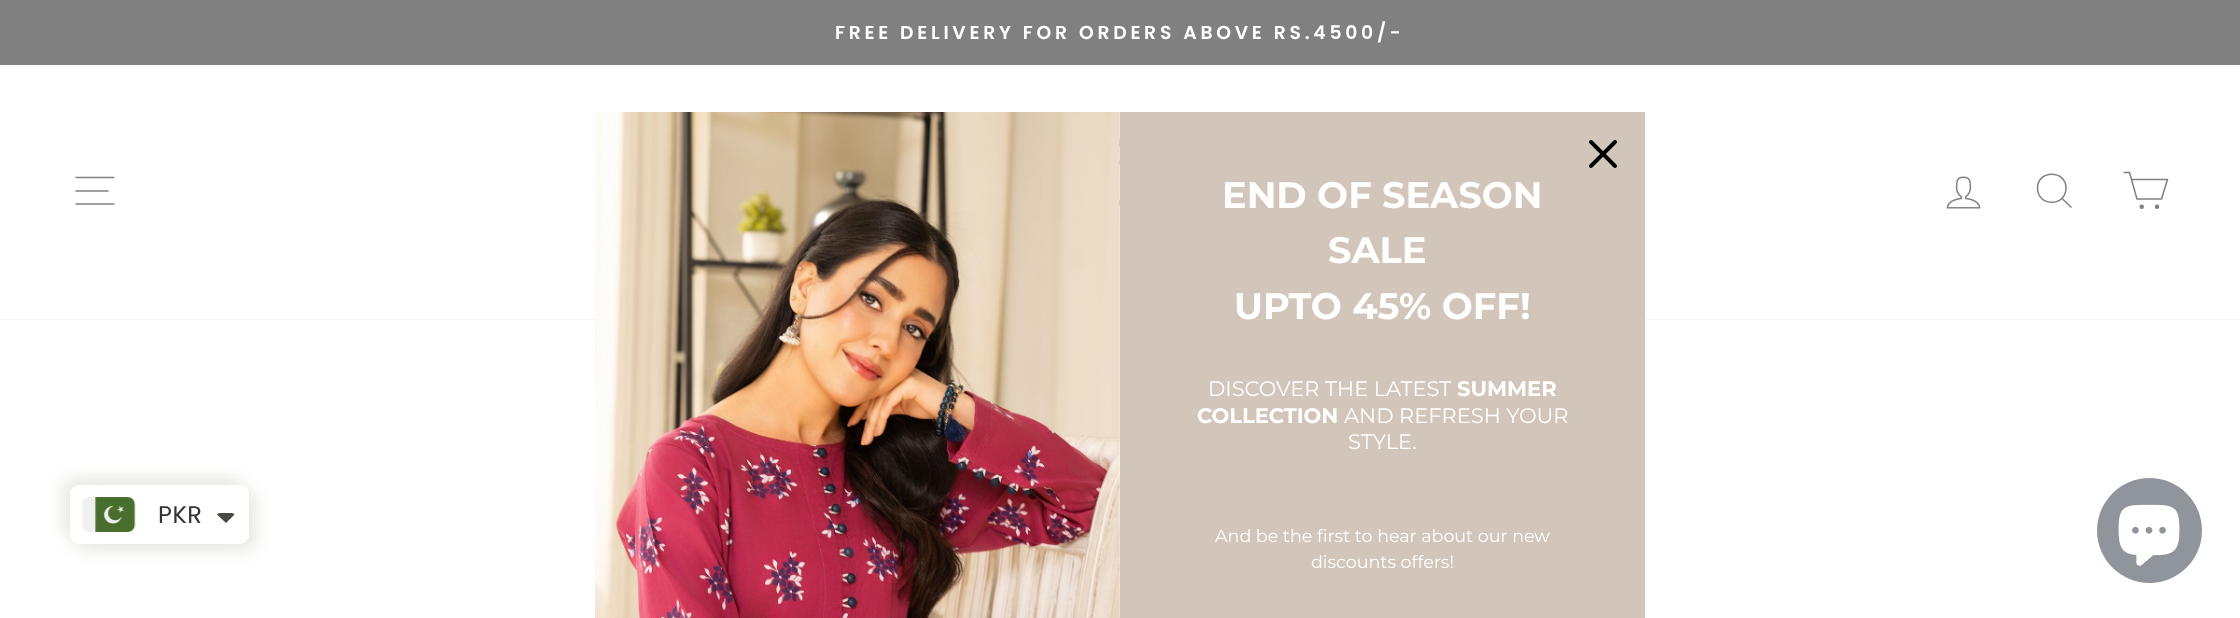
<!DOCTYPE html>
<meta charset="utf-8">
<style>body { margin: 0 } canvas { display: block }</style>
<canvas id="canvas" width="2240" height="618"></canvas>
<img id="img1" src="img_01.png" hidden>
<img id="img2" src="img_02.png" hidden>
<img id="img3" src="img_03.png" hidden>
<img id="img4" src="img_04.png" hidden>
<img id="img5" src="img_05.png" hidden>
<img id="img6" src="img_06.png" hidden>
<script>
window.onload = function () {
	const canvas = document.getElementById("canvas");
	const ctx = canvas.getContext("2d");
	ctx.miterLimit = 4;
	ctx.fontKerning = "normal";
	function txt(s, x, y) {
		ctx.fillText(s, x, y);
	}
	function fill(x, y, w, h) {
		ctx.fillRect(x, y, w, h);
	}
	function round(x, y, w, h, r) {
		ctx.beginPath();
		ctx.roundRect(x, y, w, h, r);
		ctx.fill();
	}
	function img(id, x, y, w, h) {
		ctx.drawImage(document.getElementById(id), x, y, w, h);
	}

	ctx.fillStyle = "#FFFFFF";
	fill(0, 0, 2240, 618);
	ctx.fillStyle = "#808080";
	fill(0, 0, 2240, 65);
	ctx.fillStyle = "rgba(128, 128, 128, 0.2)";
	ctx.filter = "blur(1px)";
	ctx.beginPath();
	ctx.rect(0, 65, 2240, 254);
	ctx.fill();
	ctx.filter = "none";
	ctx.fillStyle = "#FFFFFF";
	fill(0, 65, 2240, 254);
	ctx.beginPath();
	ctx.moveTo(75.5, 177.5);
	ctx.lineTo(114.5, 177.5);
	ctx.moveTo(75.5, 191);
	ctx.lineTo(108.5, 191);
	ctx.moveTo(75.5, 204);
	ctx.lineTo(114.5, 204);
	ctx.strokeStyle = "#808080";
	ctx.lineWidth = 1.5;
	ctx.stroke();
	img("img1", 1119, 137, 1, 70);
	img("img2", 1946, 176, 35, 33);
	ctx.beginPath();
	ctx.moveTo(2066, 188);
	ctx.bezierCurveTo(2066, 207, 2037.5, 207, 2037.5, 188);
	ctx.bezierCurveTo(2037.5, 169.5, 2066, 169.5, 2066, 188);
	ctx.closePath();
	ctx.moveTo(2071.5, 207.5);
	ctx.lineTo(2062, 198.5);
	ctx.stroke();
	ctx.beginPath();
	ctx.moveTo(2131.5, 179.5);
	ctx.lineTo(2167.5, 179.5);
	ctx.lineTo(2161.5, 199);
	ctx.lineTo(2137, 199);
	ctx.lineTo(2129.5, 172.5);
	ctx.lineTo(2123.5, 172.5);
	ctx.stroke();
	ctx.fillStyle = "#808080";
	ctx.beginPath();
	ctx.arc(2141.7, 206.8, 1.5, 0, Math.PI * 2);
	ctx.fill();
	ctx.stroke();
	ctx.beginPath();
	ctx.arc(2157, 206.8, 1.5, 0, Math.PI * 2);
	ctx.fill();
	ctx.stroke();
	ctx.fillStyle = "#E8E8E2";
	ctx.filter = "blur(8px)";
	ctx.beginPath();
	ctx.roundRect(63, 478, 179, 59, 9);
	ctx.fill();
	ctx.filter = "none";
	ctx.filter = "blur(8px)";
	ctx.beginPath();
	ctx.roundRect(77, 492, 179, 59, 9);
	ctx.fill();
	ctx.filter = "none";
	ctx.fillStyle = "#FFFFFF";
	round(70, 485, 179, 59, 9);
	img("img3", 82, 497, 54, 35);
	ctx.fillStyle = "#474942";
	ctx.beginPath();
	ctx.moveTo(220.5, 513);
	ctx.lineTo(231, 513);
	ctx.bezierCurveTo(232.5, 513, 234, 513.5, 234.5, 514.5);
	ctx.lineTo(226, 523);
	ctx.lineTo(217, 514.5);
	ctx.bezierCurveTo(217.5, 513.5, 219, 513, 220.5, 513);
	ctx.closePath();
	ctx.fill();
	ctx.fillStyle = "#D2C6BA";
	fill(1120, 112, 525, 506);
	img("img4", 1589, 140, 28, 28);
	img("img5", 595, 112, 525, 506);
	ctx.fillStyle = "#90959B";
	ctx.beginPath();
	ctx.arc(2149.5, 530.5, 52.5, 0, Math.PI * 2);
	ctx.fill();
	img("img6", 2118, 504, 62, 62);
	ctx.letterSpacing = "3.75px";
	ctx.font = "600 18.75px Poppins";
	ctx.fillStyle = "#FFFFFF";
	txt("FREE DELIVERY FOR ORDERS ABOVE RS.4500/-", 835, 39);
	ctx.letterSpacing = "0.5px";
	ctx.font = "24px Poppins";
	ctx.fillStyle = "#333333";
	txt("PKR", 158, 523);
	ctx.letterSpacing = "0px";
	ctx.font = "bold 36.75px Montserrat";
	ctx.fillStyle = "#FFFFFF";
	txt("END OF SEASON", 1222, 208);
	txt("SALE", 1328, 263);
	txt("UPTO 45% OFF!", 1234, 319);
	ctx.font = "21px Montserrat";
	txt("DISCOVER THE LATEST", 1208, 396);
	ctx.font = "bold 21px Montserrat";
	txt("SUMMER", 1457, 396);
	txt("COLLECTION", 1197, 423);
	ctx.font = "21px Montserrat";
	txt("AND REFRESH YOUR", 1344, 423);
	txt("STYLE.", 1348, 449);
	ctx.font = "17.5px Montserrat";
	txt("And be the first to hear about our new", 1215, 542);
	txt("discounts offers!", 1311, 568);
};
</script>
